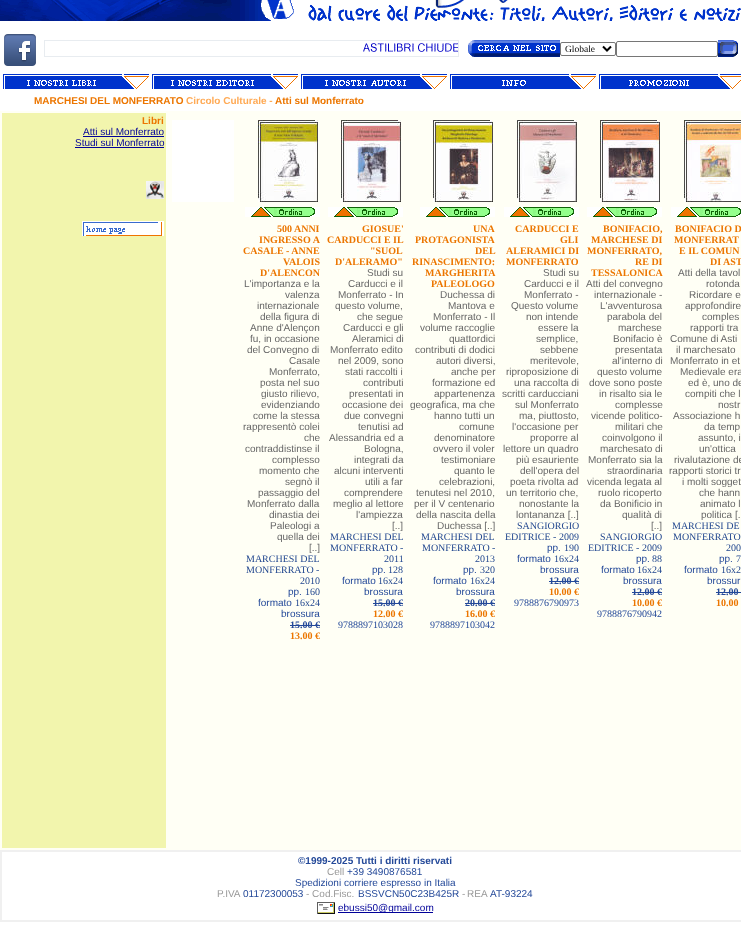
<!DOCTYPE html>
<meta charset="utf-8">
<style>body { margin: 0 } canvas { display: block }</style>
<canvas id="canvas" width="741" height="952"></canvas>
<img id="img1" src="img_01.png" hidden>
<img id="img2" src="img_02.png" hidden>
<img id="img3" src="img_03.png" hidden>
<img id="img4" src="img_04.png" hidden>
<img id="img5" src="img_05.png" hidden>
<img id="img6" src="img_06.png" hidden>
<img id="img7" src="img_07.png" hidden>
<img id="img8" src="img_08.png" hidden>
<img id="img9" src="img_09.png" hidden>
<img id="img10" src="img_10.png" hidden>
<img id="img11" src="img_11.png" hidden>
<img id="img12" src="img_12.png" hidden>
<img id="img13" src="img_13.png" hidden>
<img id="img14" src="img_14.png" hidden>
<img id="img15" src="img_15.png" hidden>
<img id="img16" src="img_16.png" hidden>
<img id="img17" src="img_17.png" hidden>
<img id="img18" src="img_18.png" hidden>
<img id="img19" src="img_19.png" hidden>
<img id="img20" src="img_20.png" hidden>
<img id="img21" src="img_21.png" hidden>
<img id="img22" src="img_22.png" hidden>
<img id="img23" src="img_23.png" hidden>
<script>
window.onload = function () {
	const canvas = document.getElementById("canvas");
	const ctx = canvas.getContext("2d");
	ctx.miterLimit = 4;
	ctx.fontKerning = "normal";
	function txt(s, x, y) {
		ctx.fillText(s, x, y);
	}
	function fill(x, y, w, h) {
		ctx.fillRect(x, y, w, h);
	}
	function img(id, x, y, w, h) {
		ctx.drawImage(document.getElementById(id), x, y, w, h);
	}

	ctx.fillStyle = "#FFFFFF";
	fill(0, 0, 741, 952);
	ctx.fillStyle = "#E8ECF0";
	fill(44, 40, 415, 17);
	img("img1", 45, 41, 413, 15);
	img("img2", 0, 0, 162, 21);
	img("img3", 162, 0, 275, 21);
	img("img4", 437, 0, 304, 21);
	img("img5", 4, 34, 32, 32);
	img("img6", 468, 40, 92, 17);
	ctx.beginPath();
	ctx.roundRect(560.5, 42.5, 55, 13, 1.5);
	ctx.strokeStyle = "#767676";
	ctx.stroke();
	ctx.beginPath();
	ctx.moveTo(603, 46.5);
	ctx.lineTo(607, 50.5);
	ctx.lineTo(611, 46.5);
	ctx.strokeStyle = "#000000";
	ctx.lineWidth = 2;
	ctx.stroke();
	ctx.beginPath();
	ctx.roundRect(616.5, 41.5, 101, 15, 1.5);
	ctx.strokeStyle = "#767676";
	ctx.lineWidth = 1;
	ctx.stroke();
	img("img7", 718, 40, 20, 17);
	img("img8", 3, 74, 146, 15);
	img("img9", 152, 74, 146, 15);
	img("img10", 301, 74, 146, 15);
	img("img11", 450, 74, 146, 15);
	img("img12", 599, 74, 142, 15);
	ctx.fillStyle = "#FFFFF5";
	fill(0, 111, 741, 739);
	ctx.fillStyle = "#F2F5AD";
	fill(2, 113, 164, 735);
	ctx.fillStyle = "#000099";
	fill(83, 136, 81, 1);
	fill(75, 147, 89, 1);
	img("img13", 146, 181, 18, 18);
	img("img14", 82, 221, 82, 15);
	ctx.fillStyle = "#FFFFFF";
	fill(172, 120, 62, 82);
	img("img15", 258, 120, 60, 82);
	img("img16", 245, 207, 75, 10);
	img("img17", 341, 120, 60, 82);
	img("img16", 328, 207, 75, 10);
	img("img18", 433, 120, 60, 82);
	img("img16", 420, 207, 75, 10);
	img("img19", 517, 120, 60, 82);
	img("img16", 504, 207, 75, 10);
	img("img20", 600, 120, 60, 82);
	img("img16", 587, 207, 75, 10);
	img("img21", 684, 120, 57, 82);
	img("img22", 671, 207, 70, 10);
	ctx.fillStyle = "#244999";
	fill(290, 625, 30, 1);
	fill(373, 603, 30, 1);
	fill(465, 603, 30, 1);
	fill(549, 581, 30, 1);
	fill(632, 592, 30, 1);
	fill(716, 592, 25, 1);
	ctx.strokeStyle = "#F0F0F0";
	ctx.strokeRect(0.5, 850.5, 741, 71);
	ctx.strokeRect(1.5, 851.5, 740, 69);
	img("img23", 317, 902, 18, 12);
	ctx.fillStyle = "#000099";
	fill(338, 912, 95, 1);
	ctx.font = "9.5px Liberation Serif";
	ctx.fillStyle = "#000000";
	txt("Globale", 565, 52);
	ctx.font = "bold 10px Liberation Sans";
	ctx.fillStyle = "#EC7600";
	txt("MARCHESI DEL MONFERRATO", 34, 104);
	ctx.fillStyle = "#FFAA55";
	txt("Circolo Culturale -", 186, 104);
	ctx.fillStyle = "#EC7600";
	txt("Atti sul Monferrato", 275, 104);
	txt("Libri", 142, 124);
	ctx.font = "10px Liberation Sans";
	ctx.fillStyle = "#000099";
	txt("Atti sul Monferrato", 83, 135);
	txt("Studi sul Monferrato", 75, 146);
	ctx.font = "bold 10px Liberation Serif";
	ctx.fillStyle = "#EC7600";
	txt("500 ANNI", 277, 232);
	txt("INGRESSO A", 259, 243);
	txt("CASALE - ANNE", 243, 254);
	txt("VALOIS", 283, 265);
	txt("D'ALENCON", 260, 276);
	ctx.font = "10px Liberation Sans";
	ctx.fillStyle = "#666666";
	txt("L'importanza e la", 244, 287);
	txt("valenza", 285, 298);
	txt("internazionale", 257, 309);
	txt("della figura di", 260, 320);
	txt("Anne d'Alençon", 250, 331);
	txt("fu, in occasione", 250, 342);
	txt("del Convegno di", 247, 353);
	txt("Casale", 289, 364);
	txt("Monferrato,", 269, 375);
	txt("posta nel suo", 260, 386);
	txt("giusto rilievo,", 261, 397);
	txt("evidenziando", 261, 408);
	txt("come la stessa", 253, 419);
	txt("rappresentò colei", 243, 430);
	txt("che", 304, 441);
	txt("contraddistinse il", 245, 452);
	txt("complesso", 272, 463);
	txt("momento che", 259, 474);
	txt("segnò il", 285, 485);
	txt("passaggio del", 258, 496);
	txt("Monferrato dalla", 247, 507);
	txt("dinastia dei", 269, 518);
	txt("Paleologi a", 270, 529);
	txt("quella dei", 277, 540);
	txt("[..]", 309, 551);
	ctx.font = "10px Liberation Serif";
	ctx.fillStyle = "#244990";
	txt("MARCHESI DEL", 246, 562);
	txt("MONFERRATO -", 246, 573);
	txt("2010", 300, 584);
	ctx.font = "10px Liberation Sans";
	ctx.fillStyle = "#244999";
	txt("pp.", 288, 595);
	ctx.font = "10px Liberation Serif";
	ctx.fillStyle = "#244990";
	txt("160", 305, 595);
	ctx.font = "10px Liberation Sans";
	ctx.fillStyle = "#244999";
	txt("formato", 258, 606);
	ctx.font = "10px Liberation Serif";
	ctx.fillStyle = "#244990";
	txt("16x24", 295, 606);
	ctx.font = "10px Liberation Sans";
	ctx.fillStyle = "#244999";
	txt("brossura", 281, 617);
	ctx.font = "bold 10px Liberation Serif";
	txt("15.00 €", 290, 628);
	ctx.fillStyle = "#EC7600";
	txt("13.00 €", 290, 639);
	txt("GIOSUE'", 362, 232);
	txt("CARDUCCI E IL", 327, 243);
	txt("\"SUOL", 370, 254);
	txt("D'ALERAMO\"", 335, 265);
	ctx.font = "10px Liberation Sans";
	ctx.fillStyle = "#666666";
	txt("Studi su", 367, 276);
	txt("Carducci e il", 348, 287);
	txt("Monferrato - In", 338, 298);
	txt("questo volume,", 335, 309);
	txt("che segue", 357, 320);
	txt("Carducci e gli", 343, 331);
	txt("Aleramici di", 352, 342);
	txt("Monferrato edito", 330, 353);
	txt("nel 2009, sono", 338, 364);
	txt("stati raccolti i", 345, 375);
	txt("contributi", 363, 386);
	txt("presentati in", 349, 397);
	txt("occasione dei", 342, 408);
	txt("due convegni", 344, 419);
	txt("tenutisi ad", 358, 430);
	txt("Alessandria ed a", 329, 441);
	txt("Bologna,", 364, 452);
	txt("integrati da", 354, 463);
	txt("alcuni interventi", 334, 474);
	txt("utili a far", 365, 485);
	txt("comprendere", 344, 496);
	txt("meglio al lettore", 333, 507);
	txt("l'ampiezza", 356, 518);
	txt("[..]", 392, 529);
	ctx.font = "10px Liberation Serif";
	ctx.fillStyle = "#244990";
	txt("MARCHESI DEL", 330, 540);
	txt("MONFERRATO -", 330, 551);
	txt("2011", 384, 562);
	ctx.font = "10px Liberation Sans";
	ctx.fillStyle = "#244999";
	txt("pp.", 372, 573);
	ctx.font = "10px Liberation Serif";
	ctx.fillStyle = "#244990";
	txt("128", 388, 573);
	ctx.font = "10px Liberation Sans";
	ctx.fillStyle = "#244999";
	txt("formato", 342, 584);
	ctx.font = "10px Liberation Serif";
	ctx.fillStyle = "#244990";
	txt("16x24", 378, 584);
	ctx.font = "10px Liberation Sans";
	ctx.fillStyle = "#244999";
	txt("brossura", 364, 595);
	ctx.font = "bold 10px Liberation Serif";
	txt("15.00 €", 373, 606);
	ctx.fillStyle = "#EC7600";
	txt("12.00 €", 373, 617);
	ctx.font = "10px Liberation Serif";
	ctx.fillStyle = "#244999";
	txt("9788897103028", 338, 628);
	ctx.font = "bold 10px Liberation Serif";
	ctx.fillStyle = "#EC7600";
	txt("UNA", 473, 232);
	txt("PROTAGONISTA", 415, 243);
	txt("DEL", 475, 254);
	txt("RINASCIMENTO:", 412, 265);
	txt("MARGHERITA", 425, 276);
	txt("PALEOLOGO", 431, 287);
	ctx.font = "10px Liberation Sans";
	ctx.fillStyle = "#666666";
	txt("Duchessa di", 440, 298);
	txt("Mantova e", 448, 309);
	txt("Monferrato - Il", 433, 320);
	txt("volume raccoglie", 420, 331);
	txt("quattordici", 449, 342);
	txt("contributi di dodici", 415, 353);
	txt("autori diversi,", 436, 364);
	txt("anche per", 451, 375);
	txt("formazione ed", 432, 386);
	txt("appartenenza", 434, 397);
	txt("geografica, ma che", 410, 408);
	txt("hanno tutti un", 434, 419);
	txt("comune", 459, 430);
	txt("denominatore", 434, 441);
	txt("ovvero il voler", 433, 452);
	txt("testimoniare", 441, 463);
	txt("quanto le", 454, 474);
	txt("celebrazioni,", 439, 485);
	txt("tenutesi nel 2010,", 416, 496);
	txt("per il V centenario", 414, 507);
	txt("della nascita della", 416, 518);
	txt("Duchessa [..]", 437, 529);
	ctx.font = "10px Liberation Serif";
	ctx.fillStyle = "#244990";
	txt("MARCHESI DEL", 421, 540);
	txt("MONFERRATO -", 422, 551);
	txt("2013", 475, 562);
	ctx.font = "10px Liberation Sans";
	ctx.fillStyle = "#244999";
	txt("pp.", 463, 573);
	ctx.font = "10px Liberation Serif";
	ctx.fillStyle = "#244990";
	txt("320", 480, 573);
	ctx.font = "10px Liberation Sans";
	ctx.fillStyle = "#244999";
	txt("formato", 433, 584);
	ctx.font = "10px Liberation Serif";
	ctx.fillStyle = "#244990";
	txt("16x24", 470, 584);
	ctx.font = "10px Liberation Sans";
	ctx.fillStyle = "#244999";
	txt("brossura", 456, 595);
	ctx.font = "bold 10px Liberation Serif";
	txt("20.00 €", 465, 606);
	ctx.fillStyle = "#EC7600";
	txt("16.00 €", 465, 617);
	ctx.font = "10px Liberation Serif";
	ctx.fillStyle = "#244999";
	txt("9788897103042", 430, 628);
	ctx.font = "bold 10px Liberation Serif";
	ctx.fillStyle = "#EC7600";
	txt("CARDUCCI E", 515, 232);
	txt("GLI", 560, 243);
	txt("ALERAMICI DI", 506, 254);
	txt("MONFERRATO", 506, 265);
	ctx.font = "10px Liberation Sans";
	ctx.fillStyle = "#666666";
	txt("Studi su", 543, 276);
	txt("Carducci e il", 524, 287);
	txt("Monferrato -", 524, 298);
	txt("Questo volume", 511, 309);
	txt("non intende", 526, 320);
	txt("essere la", 538, 331);
	txt("semplice,", 536, 342);
	txt("sebbene", 540, 353);
	txt("meritevole,", 530, 364);
	txt("riproposizione di", 506, 375);
	txt("una raccolta di", 514, 386);
	txt("scritti carducciani", 502, 397);
	txt("sul Monferrato", 515, 408);
	txt("ma, piuttosto,", 519, 419);
	txt("l'occasione per", 512, 430);
	txt("proporre al", 530, 441);
	txt("lettore un quadro", 503, 452);
	txt("più esauriente", 516, 463);
	txt("dell'opera del", 520, 474);
	txt("poeta rivolta ad", 510, 485);
	txt("un territorio che,", 506, 496);
	txt("nonostante la", 519, 507);
	txt("lontananza [..]", 516, 518);
	ctx.font = "10px Liberation Serif";
	ctx.fillStyle = "#244990";
	txt("SANGIORGIO", 517, 529);
	txt("EDITRICE - 2009", 505, 540);
	ctx.font = "10px Liberation Sans";
	ctx.fillStyle = "#244999";
	txt("pp.", 547, 551);
	ctx.font = "10px Liberation Serif";
	ctx.fillStyle = "#244990";
	txt("190", 564, 551);
	ctx.font = "10px Liberation Sans";
	ctx.fillStyle = "#244999";
	txt("formato", 517, 562);
	ctx.font = "10px Liberation Serif";
	ctx.fillStyle = "#244990";
	txt("16x24", 554, 562);
	ctx.font = "10px Liberation Sans";
	ctx.fillStyle = "#244999";
	txt("brossura", 540, 573);
	ctx.font = "bold 10px Liberation Serif";
	txt("12.00 €", 549, 584);
	ctx.fillStyle = "#EC7600";
	txt("10.00 €", 549, 595);
	ctx.font = "10px Liberation Serif";
	ctx.fillStyle = "#244999";
	txt("9788876790973", 514, 606);
	ctx.font = "bold 10px Liberation Serif";
	ctx.fillStyle = "#EC7600";
	txt("BONIFACIO,", 603, 232);
	txt("MARCHESE DI", 591, 243);
	txt("MONFERRATO,", 587, 254);
	txt("RE DI", 635, 265);
	txt("TESSALONICA", 591, 276);
	ctx.font = "10px Liberation Sans";
	ctx.fillStyle = "#666666";
	txt("Atti del convegno", 586, 287);
	txt("internazionale -", 594, 298);
	txt("L'avventurosa", 600, 309);
	txt("parabola del", 607, 320);
	txt("marchese", 618, 331);
	txt("Bonifacio è", 613, 342);
	txt("presentata", 615, 353);
	txt("al'interno di", 612, 364);
	txt("questo volume", 597, 375);
	txt("dove sono poste", 589, 386);
	txt("in risalto sia le", 599, 397);
	txt("complesse", 615, 408);
	txt("vicende politico-", 591, 419);
	txt("militari che", 615, 430);
	txt("coinvolgono il", 602, 441);
	txt("marchesato di", 600, 452);
	txt("Monferrato sia la", 588, 463);
	txt("straordinaria", 607, 474);
	txt("vicenda legata al", 587, 485);
	txt("ruolo ricoperto", 598, 496);
	txt("da Bonificio in", 600, 507);
	txt("qualità di", 622, 518);
	txt("[..]", 651, 529);
	ctx.font = "10px Liberation Serif";
	ctx.fillStyle = "#244990";
	txt("SANGIORGIO", 600, 540);
	txt("EDITRICE - 2009", 588, 551);
	ctx.font = "10px Liberation Sans";
	ctx.fillStyle = "#244999";
	txt("pp.", 636, 562);
	ctx.font = "10px Liberation Serif";
	ctx.fillStyle = "#244990";
	txt("88", 652, 562);
	ctx.font = "10px Liberation Sans";
	ctx.fillStyle = "#244999";
	txt("formato", 601, 573);
	ctx.font = "10px Liberation Serif";
	ctx.fillStyle = "#244990";
	txt("16x24", 637, 573);
	ctx.font = "10px Liberation Sans";
	ctx.fillStyle = "#244999";
	txt("brossura", 623, 584);
	ctx.font = "bold 10px Liberation Serif";
	txt("12.00 €", 632, 595);
	ctx.fillStyle = "#EC7600";
	txt("10.00 €", 632, 606);
	ctx.font = "10px Liberation Serif";
	ctx.fillStyle = "#244999";
	txt("9788876790942", 597, 617);
	ctx.font = "bold 10px Liberation Serif";
	ctx.fillStyle = "#EC7600";
	txt("BONIFACIO D", 675, 232);
	txt("MONFERRAT", 674, 243);
	txt("E IL COMUN", 679, 254);
	txt("DI AST", 710, 265);
	ctx.font = "10px Liberation Sans";
	ctx.fillStyle = "#666666";
	txt("Atti della tavol", 678, 276);
	txt("rotonda", 706, 287);
	txt("Ricordare e", 689, 298);
	txt("approfondire", 685, 309);
	txt("comples", 702, 320);
	txt("rapporti tra", 690, 331);
	txt("Comune di Asti", 670, 342);
	txt("il marchesato", 676, 353);
	txt("Monferrato in et", 670, 364);
	txt("Medievale era", 680, 375);
	txt("ed è, uno de", 688, 386);
	txt("compiti che l", 685, 397);
	txt("nostr", 718, 408);
	txt("Associazione h", 673, 419);
	txt("da temp", 704, 430);
	txt("assunto, i", 698, 441);
	txt("un'ottica", 699, 452);
	txt("rivalutazione de", 674, 463);
	txt("rapporti storici tr", 669, 474);
	txt("i molti sogget", 682, 485);
	txt("che hann", 699, 496);
	txt("animato l", 700, 507);
	txt("politica [.", 701, 518);
	ctx.font = "10px Liberation Serif";
	ctx.fillStyle = "#244990";
	txt("MARCHESI DE", 672, 529);
	txt("MONFERRATO", 673, 540);
	txt("200", 726, 551);
	ctx.font = "10px Liberation Sans";
	ctx.fillStyle = "#244999";
	txt("pp.", 719, 562);
	ctx.font = "10px Liberation Serif";
	ctx.fillStyle = "#244990";
	txt("7", 736, 562);
	ctx.font = "10px Liberation Sans";
	ctx.fillStyle = "#244999";
	txt("formato", 684, 573);
	ctx.font = "10px Liberation Serif";
	ctx.fillStyle = "#244990";
	txt("16x2", 721, 573);
	ctx.font = "10px Liberation Sans";
	ctx.fillStyle = "#244999";
	txt("brossur", 707, 584);
	ctx.font = "bold 10px Liberation Serif";
	txt("12.00", 716, 595);
	ctx.fillStyle = "#EC7600";
	txt("10.00", 716, 606);
	ctx.font = "bold 10px Liberation Sans";
	ctx.fillStyle = "#244999";
	txt("©1999-2025 Tutti i diritti riservati", 298, 864);
	ctx.font = "10px Liberation Sans";
	ctx.fillStyle = "#999999";
	txt("Cell", 327, 875);
	ctx.fillStyle = "#244999";
	txt("+39 3490876581", 347, 875);
	txt("Spedizioni corriere espresso in Italia", 295, 886);
	ctx.fillStyle = "#999999";
	txt("P.IVA", 217, 897);
	ctx.fillStyle = "#244999";
	txt("01172300053", 243, 897);
	ctx.fillStyle = "#999999";
	txt("- Cod.Fisc.", 306, 897);
	ctx.fillStyle = "#244999";
	txt("BSSVCN50C23B425R", 358, 897);
	ctx.wordSpacing = "-1px";
	ctx.fillStyle = "#999999";
	txt("- REA", 462, 897);
	ctx.wordSpacing = "0px";
	ctx.fillStyle = "#244999";
	txt("AT-93224", 490, 897);
	ctx.fillStyle = "#000099";
	txt("ebussi50@gmail.com", 338, 911);
};
</script>
